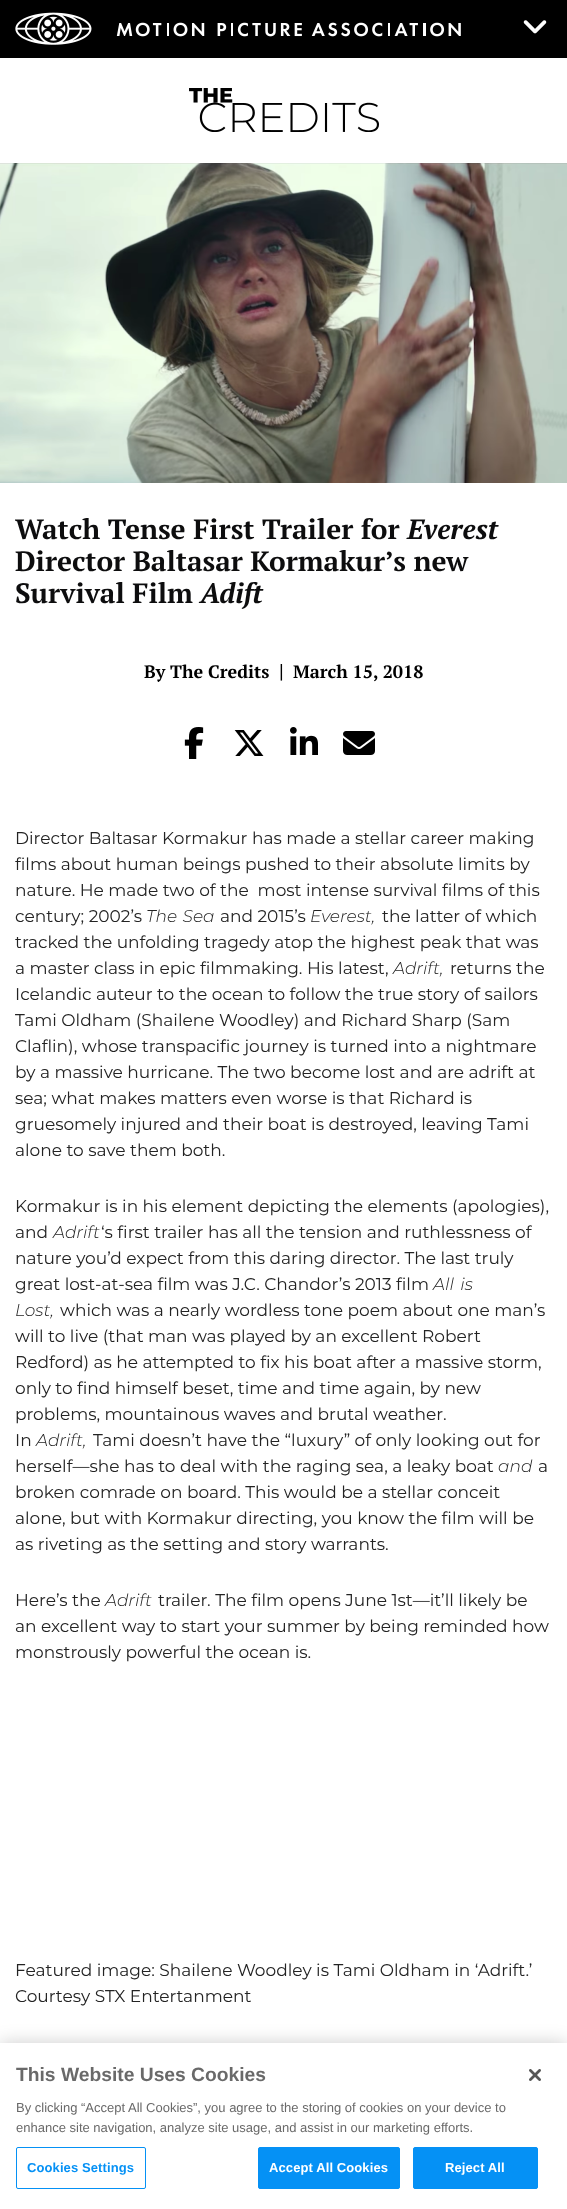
<!DOCTYPE html>
<meta charset="utf-8">
<style>body { margin: 0 } canvas { display: block }</style>
<canvas id="canvas" width="567" height="2209"></canvas>
<img id="img1" src="img_01.png" hidden>
<img id="img2" src="img_02.png" hidden>
<img id="img3" src="img_03.png" hidden>
<img id="img4" src="img_04.png" hidden>
<img id="img5" src="img_05.png" hidden>
<img id="img6" src="img_06.png" hidden>
<img id="img7" src="img_07.png" hidden>
<img id="img8" src="img_08.png" hidden>
<img id="img9" src="img_09.png" hidden>
<script>
window.onload = function () {
	const canvas = document.getElementById("canvas");
	const ctx = canvas.getContext("2d");
	ctx.miterLimit = 4;
	ctx.fontKerning = "normal";
	function txt(s, x, y) {
		ctx.fillText(s, x, y);
	}
	function fill(x, y, w, h) {
		ctx.fillRect(x, y, w, h);
	}
	function img(id, x, y, w, h) {
		ctx.drawImage(document.getElementById(id), x, y, w, h);
	}

	ctx.fillStyle = "#FFFFFF";
	fill(0, 0, 567, 2209);
	ctx.fillStyle = "#000000";
	fill(0, 0, 567, 58);
	img("img1", 15, 12, 446, 33);
	img("img2", 523, 20, 24, 14);
	img("img3", 189, 88, 190, 44);
	img("img4", 0, 163, 567, 320);
	img("img5", 184, 727, 20, 32);
	img("img6", 234, 730, 30, 26);
	img("img7", 290, 727, 28, 28);
	img("img8", 343, 731, 32, 24);
	ctx.fillStyle = "rgba(0, 0, 0, 0.2)";
	ctx.filter = "blur(9px)";
	ctx.beginPath();
	ctx.rect(0, 2043, 567, 166);
	ctx.fill();
	ctx.filter = "none";
	ctx.fillStyle = "#FFFFFF";
	fill(0, 2043, 567, 166);
	ctx.beginPath();
	ctx.roundRect(16.5, 2147.5, 129, 41, 1.5);
	ctx.strokeStyle = "#0591F5";
	ctx.stroke();
	ctx.fillStyle = "#0591F5";
	ctx.beginPath();
	ctx.roundRect(258.5, 2147.5, 141, 41, 1.5);
	ctx.fill();
	ctx.stroke();
	ctx.beginPath();
	ctx.roundRect(413.5, 2147.5, 124, 41, 1.5);
	ctx.fill();
	ctx.stroke();
	img("img9", 529, 2069, 12, 12);
	ctx.font = "bold 28px PT Serif";
	ctx.fillStyle = "#0D0D0E";
	txt("Watch Tense First Trailer for", 15, 539);
	ctx.font = "italic bold 28px PT Serif";
	txt("Everest", 407, 539);
	ctx.font = "bold 28px PT Serif";
	txt("Director Baltasar Kormakur’s new", 15, 571);
	txt("Survival Film", 15, 603);
	ctx.font = "italic bold 28px PT Serif";
	txt("Adift", 200, 603);
	ctx.font = "bold 18px PT Serif";
	ctx.fillStyle = "#000000";
	txt("By The Credits", 144, 678);
	ctx.font = "bold 20px PT Serif";
	txt("|", 279, 678);
	ctx.font = "bold 18px PT Serif";
	txt("March 15, 2018", 293, 678);
	ctx.font = "17px Montserrat";
	ctx.fillStyle = "#232323";
	txt("Director Baltasar Kormakur has made a stellar career making", 15, 844);
	txt("films about human beings pushed to their absolute limits by", 15, 870);
	txt("nature. He made two of the  most intense survival films of this", 15, 896);
	txt("century; 2002’s", 15, 922);
	ctx.wordSpacing = "1px";
	ctx.font = "italic 300 17px Montserrat";
	txt("The Sea", 146, 922);
	ctx.wordSpacing = "0px";
	ctx.font = "17px Montserrat";
	txt("and 2015’s", 220, 922);
	ctx.font = "italic 300 17px Montserrat";
	txt("Everest,", 310, 922);
	ctx.font = "17px Montserrat";
	txt("the latter of which", 382, 922);
	txt("tracked the unfolding tragedy atop the highest peak that was", 15, 948);
	txt("a master class in epic filmmaking. His latest,", 15, 974);
	ctx.font = "italic 300 17px Montserrat";
	txt("Adrift,", 393, 974);
	ctx.font = "17px Montserrat";
	txt("returns the", 450, 974);
	txt("Icelandic auteur to the ocean to follow the true story of sailors", 15, 1000);
	txt("Tami Oldham (Shailene Woodley) and Richard Sharp (Sam", 15, 1026);
	txt("Claflin), whose transpacific journey is turned into a nightmare", 15, 1052);
	txt("by a massive hurricane. The two become lost and are adrift at", 15, 1078);
	txt("sea; what makes matters even worse is that Richard is", 15, 1104);
	txt("gruesomely injured and their boat is destroyed, leaving Tami", 15, 1130);
	txt("alone to save them both.", 15, 1156);
	txt("Kormakur is in his element depicting the elements (apologies),", 15, 1212);
	txt("and", 15, 1238);
	ctx.font = "italic 300 17px Montserrat";
	txt("Adrift", 53, 1238);
	ctx.font = "17px Montserrat";
	txt("‘s first trailer has all the tension and ruthlessness of", 101, 1238);
	txt("nature you’d expect from this daring director. The last truly", 15, 1264);
	txt("great lost-at-sea film was J.C. Chandor’s 2013 film", 15, 1290);
	ctx.wordSpacing = "2px";
	ctx.font = "italic 300 17px Montserrat";
	txt("All is", 433, 1290);
	ctx.wordSpacing = "0px";
	txt("Lost,", 15, 1316);
	ctx.font = "17px Montserrat";
	txt("which was a nearly wordless tone poem about one man’s", 60, 1316);
	txt("will to live (that man was played by an excellent Robert", 15, 1342);
	txt("Redford) as he attempted to fix his boat after a massive storm,", 15, 1368);
	txt("only to find himself beset, time and time again, by new", 15, 1394);
	txt("problems, mountainous waves and brutal weather.", 15, 1420);
	txt("In", 15, 1446);
	ctx.font = "italic 300 17px Montserrat";
	txt("Adrift,", 36, 1446);
	ctx.font = "17px Montserrat";
	txt("Tami doesn’t have the “luxury” of only looking out for", 93, 1446);
	txt("herself—she has to deal with the raging sea, a leaky boat", 15, 1472);
	ctx.font = "italic 300 17px Montserrat";
	txt("and", 498, 1472);
	ctx.font = "17px Montserrat";
	txt("a", 538, 1472);
	txt("broken comrade on board. This would be a stellar conceit", 15, 1498);
	txt("alone, but with Kormakur directing, you know the film will be", 15, 1524);
	txt("as riveting as the setting and story warrants.", 15, 1550);
	txt("Here’s the", 15, 1606);
	ctx.font = "italic 300 17px Montserrat";
	txt("Adrift", 105, 1606);
	ctx.font = "17px Montserrat";
	txt("trailer. The film opens June 1st—it’ll likely be", 158, 1606);
	txt("an excellent way to start your summer by being reminded how", 15, 1632);
	txt("monstrously powerful the ocean is.", 15, 1658);
	txt("Featured image: Shailene Woodley is Tami Oldham in ‘Adrift.’", 15, 1976);
	txt("Courtesy STX Entertanment", 15, 2002);
	ctx.font = "bold 19.25px Liberation Sans";
	ctx.fillStyle = "#696969";
	txt("This Website Uses Cookies", 16, 2081);
	ctx.font = "13px Liberation Sans";
	txt("By clicking “Accept All Cookies”, you agree to the storing of cookies on your device to", 16, 2112);
	txt("enhance site navigation, analyze site usage, and assist in our marketing efforts.", 16, 2132);
	ctx.letterSpacing = "0.1px";
	ctx.font = "bold 13px Liberation Sans";
	ctx.fillStyle = "#0591F5";
	txt("Cookies Settings", 27, 2172);
	ctx.fillStyle = "#FFFFFF";
	txt("Accept All Cookies", 269, 2172);
	txt("Reject All", 445, 2172);
};
</script>
